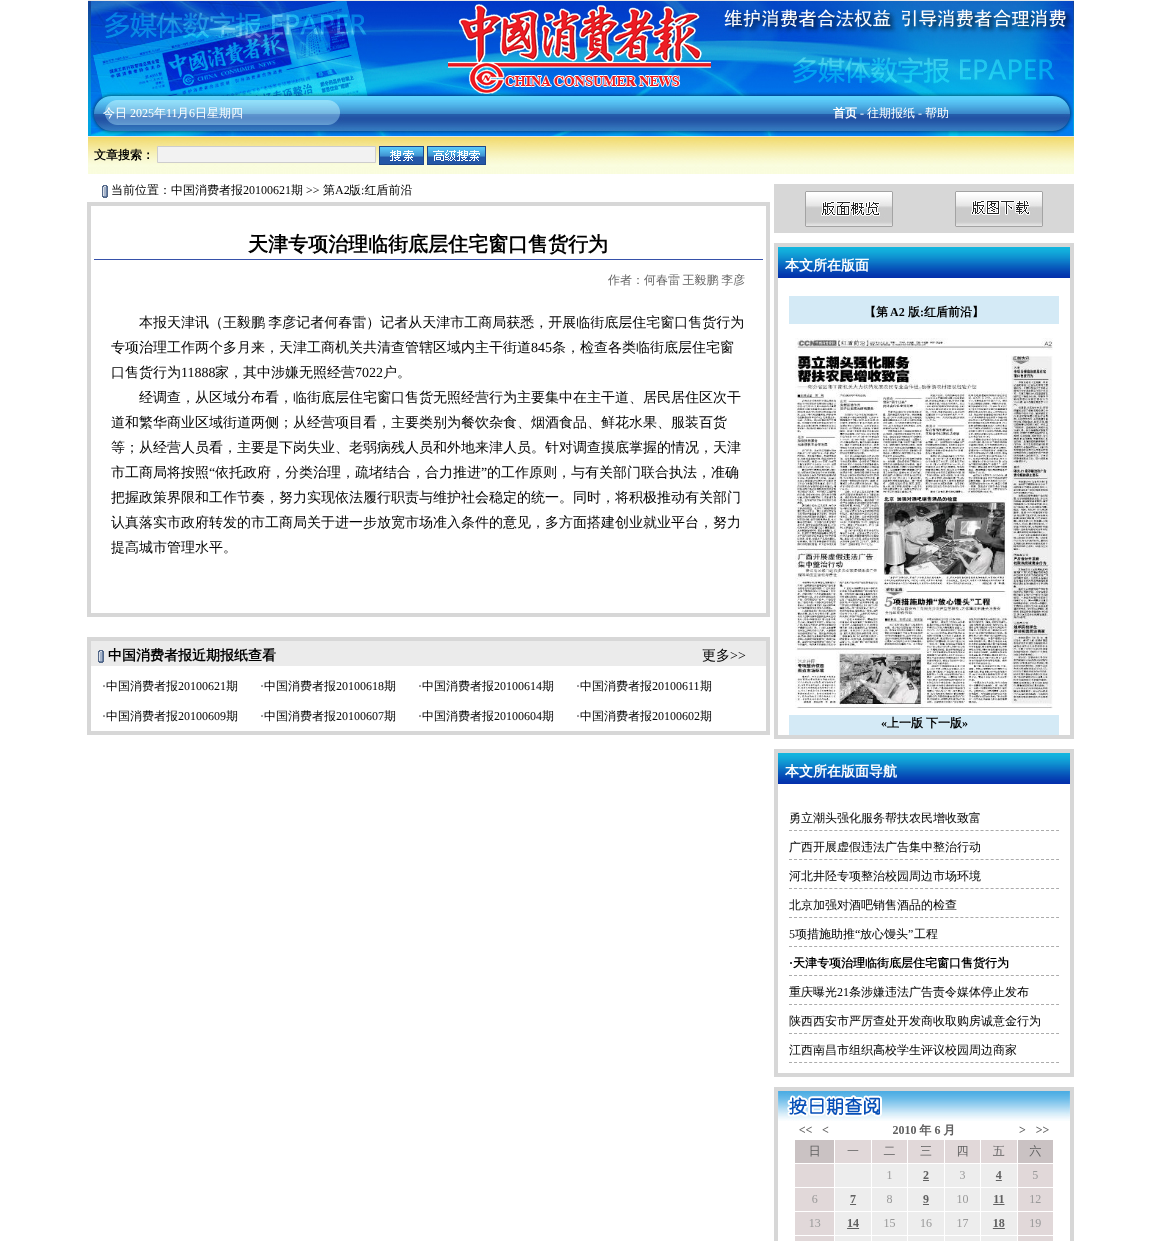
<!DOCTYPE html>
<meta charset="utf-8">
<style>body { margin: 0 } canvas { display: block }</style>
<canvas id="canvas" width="1161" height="1241"></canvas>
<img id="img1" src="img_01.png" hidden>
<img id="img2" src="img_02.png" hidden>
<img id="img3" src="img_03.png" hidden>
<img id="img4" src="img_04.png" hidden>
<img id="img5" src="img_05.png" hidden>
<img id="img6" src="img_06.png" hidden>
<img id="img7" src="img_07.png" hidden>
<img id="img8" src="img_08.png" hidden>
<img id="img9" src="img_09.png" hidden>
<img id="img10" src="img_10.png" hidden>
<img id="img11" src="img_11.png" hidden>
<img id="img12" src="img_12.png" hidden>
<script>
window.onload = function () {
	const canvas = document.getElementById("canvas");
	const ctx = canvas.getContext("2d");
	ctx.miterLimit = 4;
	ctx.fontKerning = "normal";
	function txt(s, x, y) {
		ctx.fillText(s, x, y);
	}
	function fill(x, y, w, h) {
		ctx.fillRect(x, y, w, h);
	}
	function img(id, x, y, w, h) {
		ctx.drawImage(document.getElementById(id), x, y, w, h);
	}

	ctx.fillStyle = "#FFFFFF";
	fill(0, 0, 1161, 1241);
	ctx.fillStyle = "#E7E7E7";
	fill(88, 0, 986, 1);
	img("img1", 88, 1, 986, 135);
	fill(88, 136, 986, 1);
	img("img2", 88, 137, 986, 37);
	ctx.fillStyle = "#F2F2F2";
	ctx.beginPath();
	ctx.rect(157.5, 146.5, 218, 16);
	ctx.fill();
	ctx.strokeStyle = "#CDCDCD";
	ctx.stroke();
	img("img3", 379, 146, 45, 19);
	img("img4", 427, 146, 59, 19);
	img("img5", 102, 185, 6, 13);
	ctx.strokeStyle = "#D7D7D7";
	ctx.lineWidth = 4;
	ctx.strokeRect(89, 204, 679, 411);
	ctx.fillStyle = "#3651AA";
	fill(94, 259, 669, 1);
	ctx.strokeRect(89, 639, 679, 94);
	ctx.fillStyle = "#EBEBEB";
	fill(91, 641, 675, 25);
	img("img6", 98, 650, 6, 13);
	ctx.fillStyle = "#D7D7D7";
	fill(774, 184, 300, 49);
	img("img7", 805, 191, 88, 36);
	img("img8", 955, 191, 88, 36);
	ctx.strokeRect(776, 245, 296, 492);
	img("img9", 778, 247, 292, 31);
	ctx.fillStyle = "#D4EAF6";
	fill(789, 296, 270, 28);
	img("img10", 789, 338, 270, 377);
	fill(789, 715, 270, 20);
	ctx.strokeRect(776, 751, 296, 324);
	img("img9", 778, 753, 292, 31);
	ctx.beginPath();
	ctx.moveTo(789, 830.5);
	ctx.lineTo(1059, 830.5);
	ctx.strokeStyle = "#ACACAC";
	ctx.lineWidth = 1;
	ctx.setLineDash([3, 2.04]);
	ctx.stroke();
	ctx.beginPath();
	ctx.moveTo(789, 859.5);
	ctx.lineTo(1059, 859.5);
	ctx.stroke();
	ctx.beginPath();
	ctx.moveTo(789, 888.5);
	ctx.lineTo(1059, 888.5);
	ctx.stroke();
	ctx.beginPath();
	ctx.moveTo(789, 917.5);
	ctx.lineTo(1059, 917.5);
	ctx.stroke();
	ctx.beginPath();
	ctx.moveTo(789, 946.5);
	ctx.lineTo(1059, 946.5);
	ctx.stroke();
	ctx.beginPath();
	ctx.moveTo(789, 975.5);
	ctx.lineTo(1059, 975.5);
	ctx.stroke();
	ctx.beginPath();
	ctx.moveTo(789, 1004.5);
	ctx.lineTo(1059, 1004.5);
	ctx.stroke();
	ctx.beginPath();
	ctx.moveTo(789, 1033.5);
	ctx.lineTo(1059, 1033.5);
	ctx.stroke();
	ctx.beginPath();
	ctx.moveTo(789, 1062.5);
	ctx.lineTo(1059, 1062.5);
	ctx.stroke();
	ctx.strokeStyle = "#D7D7D7";
	ctx.lineWidth = 4;
	ctx.setLineDash([]);
	ctx.strokeRect(776, 1089, 296, 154);
	img("img11", 778, 1091, 292, 30);
	img("img12", 795, 1124, 258, 117);
	ctx.font = "500 12px WenQuanYi Zen Hei";
	ctx.fillStyle = "#FFFFFF";
	txt("今日", 103, 117);
	ctx.font = "12px Liberation Serif";
	txt("2025", 130, 117);
	ctx.font = "500 12px WenQuanYi Zen Hei";
	txt("年", 154, 117);
	ctx.font = "12px Liberation Serif";
	txt("11", 166, 117);
	ctx.font = "500 12px WenQuanYi Zen Hei";
	txt("月", 177, 117);
	ctx.font = "12px Liberation Serif";
	txt("6", 189, 117);
	ctx.font = "500 12px WenQuanYi Zen Hei";
	txt("日星期四", 195, 117);
	ctx.font = "bold 12px WenQuanYi Zen Hei";
	txt("首页", 833, 117);
	ctx.font = "12px Liberation Serif";
	txt("-", 860, 117);
	ctx.font = "500 12px WenQuanYi Zen Hei";
	txt("往期报纸", 867, 117);
	ctx.font = "12px Liberation Serif";
	txt("-", 918, 117);
	ctx.font = "500 12px WenQuanYi Zen Hei";
	txt("帮助", 925, 117);
	ctx.font = "bold 12px WenQuanYi Zen Hei";
	ctx.fillStyle = "#000000";
	txt("文章搜索：", 94, 159);
	ctx.font = "500 12px WenQuanYi Zen Hei";
	txt("当前位置：中国消费者报", 111, 194);
	ctx.font = "12px Liberation Serif";
	txt("20100621", 243, 194);
	ctx.font = "500 12px WenQuanYi Zen Hei";
	txt("期", 291, 194);
	ctx.font = "12px Liberation Serif";
	txt(">>", 306, 194);
	ctx.font = "500 12px WenQuanYi Zen Hei";
	txt("第", 323, 194);
	ctx.font = "12px Liberation Serif";
	txt("A2", 335, 194);
	ctx.font = "500 12px WenQuanYi Zen Hei";
	txt("版 红盾前沿", 349, 194);
	ctx.font = "12px Liberation Serif";
	txt(":", 361, 194);
	ctx.font = "bold 20px WenQuanYi Zen Hei";
	txt("天津专项治理临街底层住宅窗口售货行为", 248, 251);
	ctx.wordSpacing = "-1px";
	ctx.font = "500 12px WenQuanYi Zen Hei";
	ctx.fillStyle = "#666666";
	txt("作者：何春雷 王毅鹏 李彦", 608, 284);
	ctx.font = "500 14px WenQuanYi Zen Hei";
	ctx.fillStyle = "#000000";
	txt("本报天津讯（王毅鹏 李彦记者何春雷）记者从天津市工商局获悉，开展临街底层住宅窗口售货行为", 139, 327);
	ctx.wordSpacing = "0px";
	txt("专项治理工作两个多月来，天津工商机关共清查管辖区域内主干街道", 111, 352);
	ctx.font = "14px Liberation Serif";
	txt("845", 531, 352);
	ctx.font = "500 14px WenQuanYi Zen Hei";
	txt("条，检查各类临街底层住宅窗", 552, 352);
	txt("口售货行为", 111, 377);
	ctx.font = "14px Liberation Serif";
	txt("11888", 181, 377);
	ctx.font = "500 14px WenQuanYi Zen Hei";
	txt("家，其中涉嫌无照经营", 215, 377);
	ctx.font = "14px Liberation Serif";
	txt("7022", 355, 377);
	ctx.font = "500 14px WenQuanYi Zen Hei";
	txt("户。", 383, 377);
	txt("经调查，从区域分布看，临街底层住宅窗口售货无照经营行为主要集中在主干道、居民居住区次干", 139, 402);
	txt("道和繁华商业区域街道两侧；从经营项目看，主要类别为餐饮杂食、烟酒食品、鲜花水果、服装百货", 111, 427);
	txt("等；从经营人员看，主要是下岗失业、老弱病残人员和外地来津人员。针对调查摸底掌握的情况，天津", 111, 452);
	txt("市工商局将按照", 111, 477);
	ctx.font = "14px Liberation Serif";
	txt("“", 209, 477);
	ctx.font = "500 14px WenQuanYi Zen Hei";
	txt("依托政府，分类治理，疏堵结合，合力推进", 215, 477);
	ctx.font = "14px Liberation Serif";
	txt("”", 481, 477);
	ctx.font = "500 14px WenQuanYi Zen Hei";
	txt("的工作原则，与有关部门联合执法，准确", 487, 477);
	txt("把握政策界限和工作节奏，努力实现依法履行职责与维护社会稳定的统一。同时，将积极推动有关部门", 111, 502);
	txt("认真落实市政府转发的市工商局关于进一步放宽市场准入条件的意见，多方面搭建创业就业平台，努力", 111, 527);
	txt("提高城市管理水平。", 111, 552);
	ctx.font = "bold 14px WenQuanYi Zen Hei";
	txt("中国消费者报近期报纸查看", 108, 660);
	ctx.font = "500 14px WenQuanYi Zen Hei";
	txt("更多", 702, 660);
	ctx.font = "14px Liberation Serif";
	txt(">>", 730, 660);
	ctx.font = "12px Liberation Serif";
	txt("·", 102, 690);
	ctx.font = "500 12px WenQuanYi Zen Hei";
	txt("中国消费者报", 106, 690);
	ctx.font = "12px Liberation Serif";
	txt("20100621", 178, 690);
	ctx.font = "500 12px WenQuanYi Zen Hei";
	txt("期", 226, 690);
	ctx.font = "12px Liberation Serif";
	txt("·", 260, 690);
	ctx.font = "500 12px WenQuanYi Zen Hei";
	txt("中国消费者报", 264, 690);
	ctx.font = "12px Liberation Serif";
	txt("20100618", 336, 690);
	ctx.font = "500 12px WenQuanYi Zen Hei";
	txt("期", 384, 690);
	ctx.font = "12px Liberation Serif";
	txt("·", 418, 690);
	ctx.font = "500 12px WenQuanYi Zen Hei";
	txt("中国消费者报", 422, 690);
	ctx.font = "12px Liberation Serif";
	txt("20100614", 494, 690);
	ctx.font = "500 12px WenQuanYi Zen Hei";
	txt("期", 542, 690);
	ctx.font = "12px Liberation Serif";
	txt("·", 576, 690);
	ctx.font = "500 12px WenQuanYi Zen Hei";
	txt("中国消费者报", 580, 690);
	ctx.font = "12px Liberation Serif";
	txt("20100611", 652, 690);
	ctx.font = "500 12px WenQuanYi Zen Hei";
	txt("期", 700, 690);
	ctx.font = "12px Liberation Serif";
	txt("·", 102, 720);
	ctx.font = "500 12px WenQuanYi Zen Hei";
	txt("中国消费者报", 106, 720);
	ctx.font = "12px Liberation Serif";
	txt("20100609", 178, 720);
	ctx.font = "500 12px WenQuanYi Zen Hei";
	txt("期", 226, 720);
	ctx.font = "12px Liberation Serif";
	txt("·", 260, 720);
	ctx.font = "500 12px WenQuanYi Zen Hei";
	txt("中国消费者报", 264, 720);
	ctx.font = "12px Liberation Serif";
	txt("20100607", 336, 720);
	ctx.font = "500 12px WenQuanYi Zen Hei";
	txt("期", 384, 720);
	ctx.font = "12px Liberation Serif";
	txt("·", 418, 720);
	ctx.font = "500 12px WenQuanYi Zen Hei";
	txt("中国消费者报", 422, 720);
	ctx.font = "12px Liberation Serif";
	txt("20100604", 494, 720);
	ctx.font = "500 12px WenQuanYi Zen Hei";
	txt("期", 542, 720);
	ctx.font = "12px Liberation Serif";
	txt("·", 576, 720);
	ctx.font = "500 12px WenQuanYi Zen Hei";
	txt("中国消费者报", 580, 720);
	ctx.font = "12px Liberation Serif";
	txt("20100602", 652, 720);
	ctx.font = "500 12px WenQuanYi Zen Hei";
	txt("期", 700, 720);
	ctx.font = "bold 14px WenQuanYi Zen Hei";
	ctx.fillStyle = "#FFFFFF";
	txt("本文所在版面", 785, 270);
	ctx.font = "bold 12px WenQuanYi Zen Hei";
	ctx.fillStyle = "#000000";
	txt("【第", 864, 316);
	ctx.font = "bold 12px Liberation Serif";
	txt("A2", 890, 316);
	ctx.font = "bold 12px WenQuanYi Zen Hei";
	txt("版", 908, 316);
	ctx.font = "bold 12px Liberation Serif";
	txt(":", 920, 316);
	ctx.font = "bold 12px WenQuanYi Zen Hei";
	txt("红盾前沿】", 924, 316);
	ctx.font = "bold 12px Liberation Serif";
	txt("«", 881, 727);
	ctx.font = "bold 12px WenQuanYi Zen Hei";
	txt("上一版", 887, 727);
	txt("下一版", 926, 727);
	ctx.font = "bold 12px Liberation Serif";
	txt("»", 962, 727);
	ctx.font = "bold 14px WenQuanYi Zen Hei";
	ctx.fillStyle = "#FFFFFF";
	txt("本文所在版面导航", 785, 776);
	ctx.font = "500 12px WenQuanYi Zen Hei";
	ctx.fillStyle = "#000000";
	txt("勇立潮头强化服务帮扶农民增收致富", 789, 822);
	txt("广西开展虚假违法广告集中整治行动", 789, 851);
	txt("河北井陉专项整治校园周边市场环境", 789, 880);
	txt("北京加强对酒吧销售酒品的检查", 789, 909);
	ctx.font = "12px Liberation Serif";
	txt("5", 789, 938);
	ctx.font = "500 12px WenQuanYi Zen Hei";
	txt("项措施助推", 795, 938);
	ctx.font = "12px Liberation Serif";
	txt("“", 855, 938);
	ctx.font = "500 12px WenQuanYi Zen Hei";
	txt("放心馒头", 860, 938);
	ctx.font = "12px Liberation Serif";
	txt("”", 908, 938);
	ctx.font = "500 12px WenQuanYi Zen Hei";
	txt("工程", 914, 938);
	ctx.font = "bold 12px Liberation Serif";
	txt("·", 789, 967);
	ctx.font = "bold 12px WenQuanYi Zen Hei";
	txt("天津专项治理临街底层住宅窗口售货行为", 793, 967);
	ctx.font = "500 12px WenQuanYi Zen Hei";
	txt("重庆曝光", 789, 996);
	ctx.font = "12px Liberation Serif";
	txt("21", 837, 996);
	ctx.font = "500 12px WenQuanYi Zen Hei";
	txt("条涉嫌违法广告责令媒体停止发布", 849, 996);
	txt("陕西西安市严厉查处开发商收取购房诚意金行为", 789, 1025);
	txt("江西南昌市组织高校学生评议校园周边商家", 789, 1054);
};
</script>
